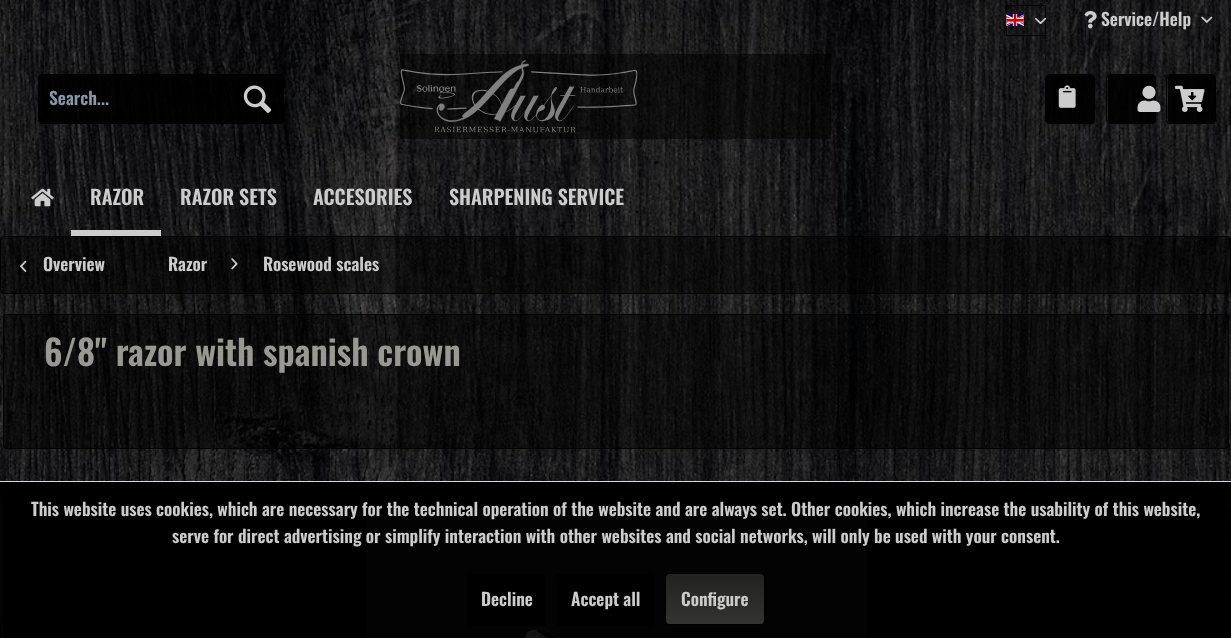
<!DOCTYPE html>
<meta charset="utf-8">
<style>body { margin: 0 } canvas { display: block }</style>
<canvas id="canvas" width="1231" height="638"></canvas>
<img id="img1" src="img_01.png" hidden>
<img id="img2" src="img_02.png" hidden>
<img id="img3" src="img_03.png" hidden>
<img id="img4" src="img_04.png" hidden>
<img id="img5" src="img_05.png" hidden>
<img id="img6" src="img_06.png" hidden>
<img id="img7" src="img_07.png" hidden>
<img id="img8" src="img_08.png" hidden>
<img id="img9" src="img_09.png" hidden>
<img id="img10" src="img_10.png" hidden>
<img id="img11" src="img_11.png" hidden>
<img id="img12" src="img_12.png" hidden>
<img id="img13" src="img_13.png" hidden>
<img id="img14" src="img_14.png" hidden>
<script>
window.onload = function () {
	const canvas = document.getElementById("canvas");
	const ctx = canvas.getContext("2d");
	ctx.miterLimit = 4;
	ctx.fontKerning = "normal";
	function txt(s, x, y) {
		ctx.fillText(s, x, y);
	}
	function fill(x, y, w, h) {
		ctx.fillRect(x, y, w, h);
	}
	function round(x, y, w, h, r) {
		ctx.beginPath();
		ctx.roundRect(x, y, w, h, r);
		ctx.fill();
	}
	function img(id, x, y, w, h) {
		ctx.drawImage(document.getElementById(id), x, y, w, h);
	}
	let gradient;

	ctx.fillStyle = "#FFFFFF";
	fill(0, 0, 1231, 638);
	img("img1", 0, 0, 1231, 638);
	ctx.strokeStyle = "#000001";
	ctx.strokeRect(1006.5, 5.5, 39, 30);
	img("img2", 1035, 17, 11, 8);
	img("img3", 1006, 14, 18, 12);
	img("img4", 1084, 10, 13, 19);
	img("img5", 1201, 16, 12, 7);
	ctx.fillStyle = "rgba(0, 0, 0, 0.9)";
	ctx.beginPath();
	ctx.roundRect(38.5, 74.5, 245, 49, 3.5);
	ctx.fill();
	ctx.stroke();
	img("img6", 243, 85, 29, 28);
	round(1046, 75, 48, 48, 2.5);
	ctx.beginPath();
	ctx.roundRect(1045.5, 74.5, 49, 49, 3.5);
	ctx.stroke();
	img("img7", 1058, 85, 18, 23);
	round(1108, 75, 47, 48, 2.5);
	ctx.beginPath();
	ctx.roundRect(1106.5, 74.5, 49, 49, 3.5);
	ctx.stroke();
	img("img8", 1137, 85, 24, 27);
	round(1168, 75, 47, 48, 2.5);
	ctx.beginPath();
	ctx.roundRect(1166.5, 74.5, 49, 49, 3.5);
	ctx.stroke();
	img("img9", 1175, 85, 30, 27);
	ctx.fillStyle = "rgba(0, 0, 0, 0.5)";
	fill(400, 54, 431, 85);
	img("img10", 400, 60, 238, 73);
	img("img11", 31, 188, 23, 19);
	ctx.fillStyle = "#CCCCCC";
	fill(71, 230, 90, 6);
	ctx.fillStyle = "rgba(0, 0, 0, 0.5)";
	ctx.beginPath();
	ctx.roundRect(0.5, 236.5, 1230, 57, 3.5);
	ctx.fill();
	ctx.stroke();
	img("img12", 20, 260, 7, 12);
	img("img13", 231, 258, 7, 12);
	ctx.beginPath();
	ctx.roundRect(3.5, 314.5, 1225, 134, 3.5);
	ctx.fill();
	ctx.stroke();
	ctx.fillStyle = "#070707";
	round(4, 488, 1224, 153, 2.5);
	ctx.beginPath();
	ctx.roundRect(3.5, 486.5, 1225, 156, 3.5);
	ctx.stroke();
	img("img14", 366, 513, 501, 125);
	ctx.fillStyle = "rgba(0, 0, 0, 0.9)";
	fill(0, 482, 1231, 156);
	ctx.fillStyle = "#DADAE5";
	fill(0, 481, 1231, 1);
	ctx.fillStyle = "#000000";
	round(468, 575, 77, 50, 2.5);
	ctx.beginPath();
	ctx.roundRect(466.5, 574.5, 79, 51, 3.5);
	ctx.stroke();
	round(558, 575, 95, 50, 2.5);
	ctx.beginPath();
	ctx.roundRect(556.5, 574.5, 97, 51, 3.5);
	ctx.stroke();
	gradient = ctx.createLinearGradient(715, 574, 715, 624);
	gradient.addColorStop(0, "#222221");
	gradient.addColorStop(1, "#333331");
	ctx.fillStyle = gradient;
	round(666, 574, 98, 50, 2.5);
	ctx.beginPath();
	ctx.roundRect(665.5, 573.5, 99, 51, 3.5);
	ctx.stroke();
	ctx.font = "600 17.5px Oswald";
	ctx.fillStyle = "#CCCCCC";
	txt("Service/Help", 1101, 26);
	ctx.fillStyle = "#8798A9";
	txt("Search...", 49, 105);
	ctx.font = "600 20px Oswald";
	ctx.fillStyle = "#CCCCCC";
	txt("RAZOR", 90, 205);
	txt("RAZOR SETS", 180, 205);
	txt("ACCESORIES", 313, 205);
	txt("SHARPENING SERVICE", 449, 205);
	ctx.font = "600 17.5px Oswald";
	txt("Overview", 43, 271);
	txt("Razor", 168, 271);
	txt("Rosewood scales", 263, 271);
	ctx.font = "600 35px Oswald";
	ctx.fillStyle = "#999991";
	txt("6/8\" razor with spanish crown", 44, 366);
	ctx.font = "600 17.5px Oswald";
	ctx.fillStyle = "#CCCCCC";
	txt("This website uses cookies, which are necessary for the technical operation of the website and are always set. Other cookies, which increase the usability of this website,", 31, 516);
	txt("serve for direct advertising or simplify interaction with other websites and social networks, will only be used with your consent.", 172, 543);
	txt("Decline", 481, 606);
	txt("Accept all", 571, 606);
	txt("Configure", 681, 606);
};
</script>
